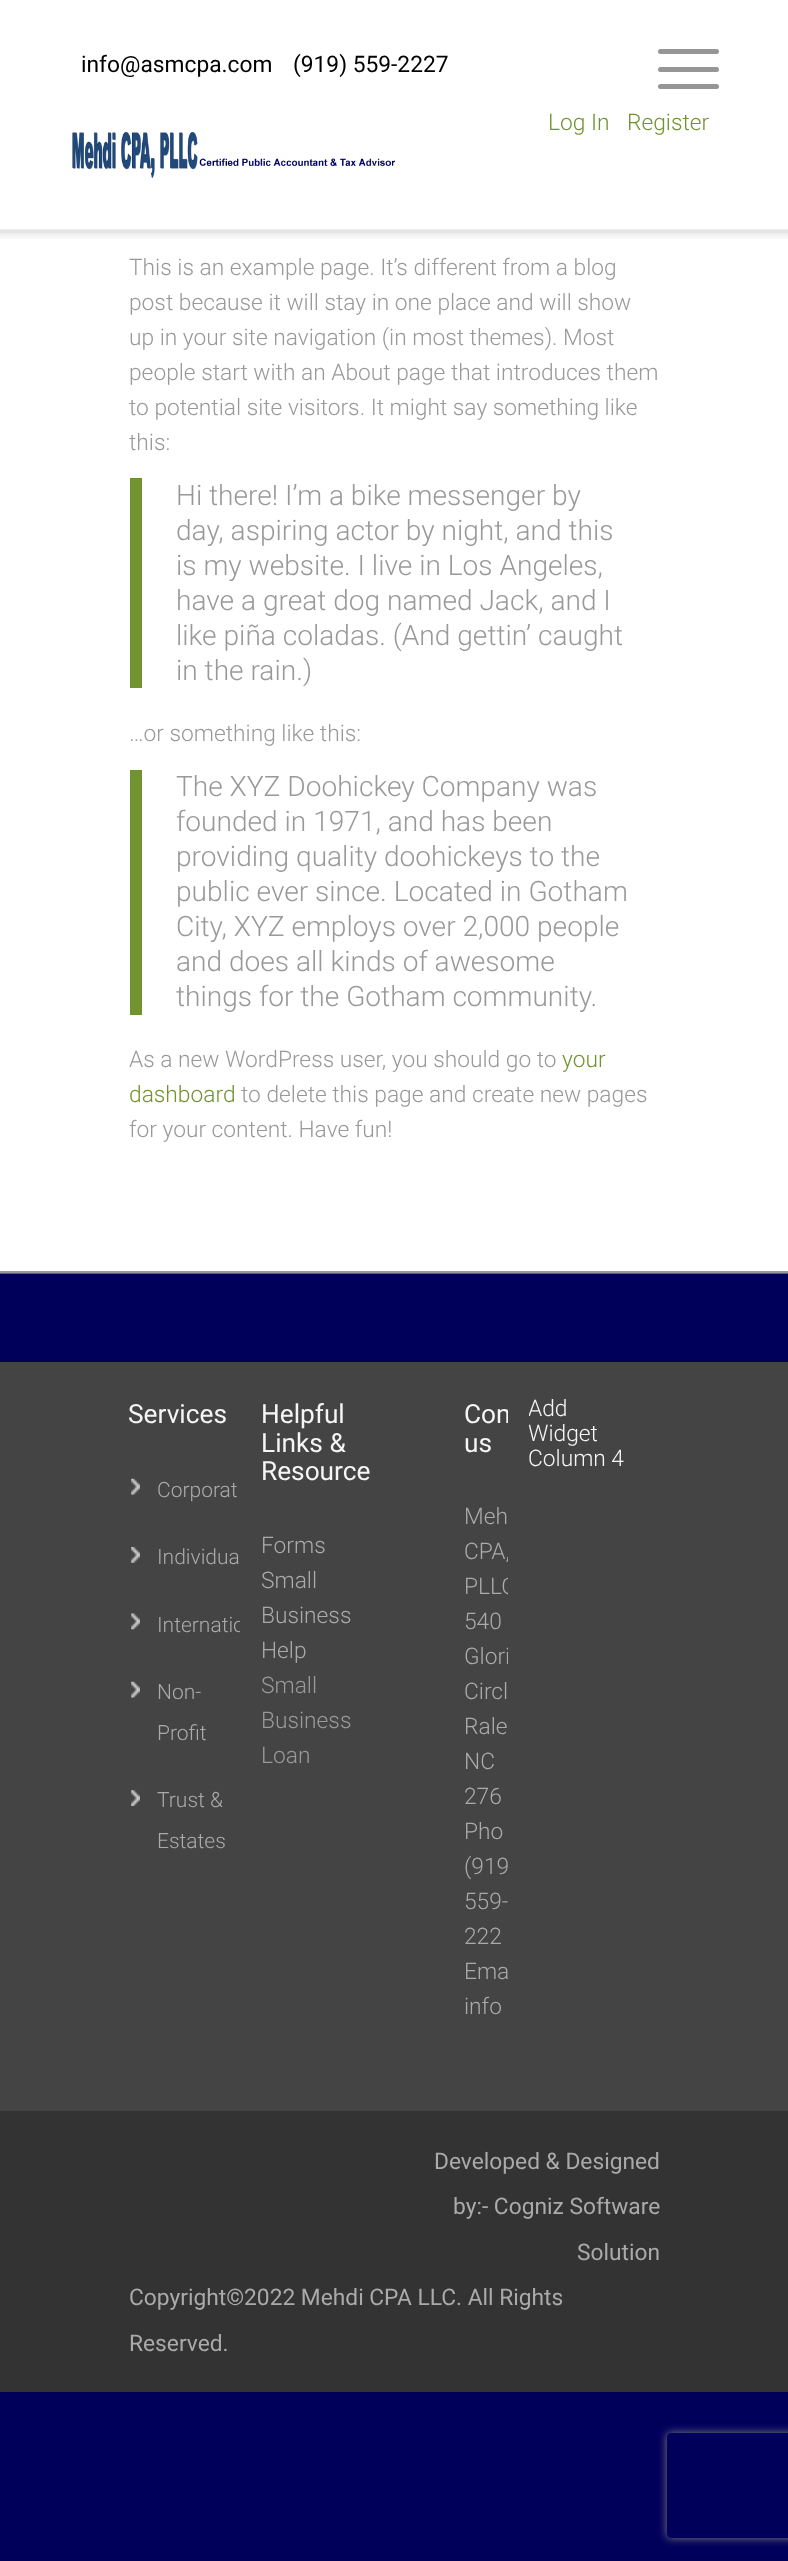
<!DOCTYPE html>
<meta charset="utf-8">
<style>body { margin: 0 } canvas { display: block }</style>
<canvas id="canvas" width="788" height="2561"></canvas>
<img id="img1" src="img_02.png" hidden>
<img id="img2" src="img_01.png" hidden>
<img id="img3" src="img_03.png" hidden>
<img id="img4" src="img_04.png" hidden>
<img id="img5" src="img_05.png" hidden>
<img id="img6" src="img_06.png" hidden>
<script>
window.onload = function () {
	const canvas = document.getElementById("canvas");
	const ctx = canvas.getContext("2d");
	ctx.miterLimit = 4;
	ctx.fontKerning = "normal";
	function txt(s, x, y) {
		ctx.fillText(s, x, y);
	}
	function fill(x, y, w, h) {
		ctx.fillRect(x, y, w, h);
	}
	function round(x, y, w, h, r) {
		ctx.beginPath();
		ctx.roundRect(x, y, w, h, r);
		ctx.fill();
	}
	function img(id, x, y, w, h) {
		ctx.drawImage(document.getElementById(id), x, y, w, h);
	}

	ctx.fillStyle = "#00005B";
	fill(0, 0, 788, 2561);
	ctx.fillStyle = "#FFFFFF";
	fill(0, 0, 788, 231);
	fill(0, 233, 788, 1038);
	img("img1", 0, 229, 788, 10);
	ctx.fillStyle = "#E5E5E5";
	fill(0, 231, 788, 2);
	ctx.fillStyle = "#969696";
	round(658, 67, 61, 5, 2.5);
	round(658, 49, 61, 5, 2.5);
	round(658, 84, 61, 5, 2.5);
	img("img2", 72, 132, 324, 47);
	ctx.fillStyle = "#719430";
	fill(130, 478, 12, 210);
	fill(130, 770, 12, 245);
	ctx.fillStyle = "#595994";
	fill(0, 1273, 788, 1);
	ctx.fillStyle = "#999999";
	fill(0, 1271, 788, 2);
	ctx.fillStyle = "#444444";
	fill(0, 1362, 788, 749);
	img("img3", 131, 1478, 9, 17);
	img("img4", 131, 1547, 9, 16);
	img("img5", 131, 1613, 9, 17);
	img("img3", 131, 1681, 9, 17);
	img("img6", 131, 1790, 9, 16);
	ctx.fillStyle = "#333333";
	fill(0, 2111, 788, 281);
	ctx.save();
	ctx.beginPath();
	ctx.moveTo(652, 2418);
	ctx.lineTo(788, 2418);
	ctx.lineTo(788, 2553);
	ctx.lineTo(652, 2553);
	ctx.closePath();
	ctx.moveTo(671, 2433);
	ctx.lineTo(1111, 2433);
	ctx.bezierCurveTo(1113, 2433, 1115, 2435, 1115, 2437);
	ctx.lineTo(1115, 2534);
	ctx.bezierCurveTo(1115, 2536, 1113, 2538, 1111, 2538);
	ctx.lineTo(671, 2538);
	ctx.bezierCurveTo(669, 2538, 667, 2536, 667, 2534);
	ctx.lineTo(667, 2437);
	ctx.bezierCurveTo(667, 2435, 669, 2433, 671, 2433);
	ctx.closePath();
	ctx.clip("evenodd");
	ctx.fillStyle = "#808080";
	ctx.filter = "blur(4.5px)";
	ctx.beginPath();
	ctx.roundRect(667, 2433, 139, 105, 4);
	ctx.fill();
	ctx.filter = "none";
	ctx.restore();
	ctx.font = "22.75px Roboto";
	ctx.fillStyle = "#000000";
	txt("info@asmcpa.com", 81, 72);
	txt("(919) 559-2227", 293, 72);
	ctx.font = "300 22.75px Roboto";
	ctx.fillStyle = "#719430";
	txt("Log In", 548, 130);
	txt("Register", 627, 130);
	ctx.fillStyle = "#999999";
	txt("This is an example page. It’s different from a blog", 129, 275);
	txt("post because it will stay in one place and will show", 129, 310);
	txt("up in your site navigation (in most themes). Most", 129, 345);
	txt("people start with an About page that introduces them", 129, 380);
	txt("to potential site visitors. It might say something like", 129, 415);
	txt("this:", 129, 450);
	ctx.font = "300 28.1px Roboto";
	txt("Hi there! I’m a bike messenger by", 176, 505);
	txt("day, aspiring actor by night, and this", 176, 540);
	txt("is my website. I live in Los Angeles,", 176, 575);
	txt("have a great dog named Jack, and I", 176, 610);
	txt("like piña coladas. (And gettin’ caught", 176, 645);
	txt("in the rain.)", 176, 680);
	ctx.font = "300 22.75px Roboto";
	txt("…or something like this:", 129, 741);
	ctx.font = "300 28.1px Roboto";
	txt("The XYZ Doohickey Company was", 176, 796);
	txt("founded in 1971, and has been", 176, 831);
	txt("providing quality doohickeys to the", 176, 866);
	txt("public ever since. Located in Gotham", 176, 901);
	txt("City, XYZ employs over 2,000 people", 176, 936);
	txt("and does all kinds of awesome", 176, 971);
	txt("things for the Gotham community.", 176, 1006);
	ctx.font = "300 22.75px Roboto";
	txt("As a new WordPress user, you should go to", 129, 1067);
	ctx.fillStyle = "#719430";
	txt("your", 562, 1067);
	txt("dashboard", 129, 1102);
	ctx.fillStyle = "#999999";
	txt("to delete this page and create new pages", 241, 1102);
	txt("for your content. Have fun!", 129, 1137);
	ctx.font = "26.25px Roboto";
	ctx.fillStyle = "#F5F5F5";
	txt("Services", 128, 1423);
	ctx.font = "300 21px Roboto";
	ctx.fillStyle = "#AAAAAA";
	txt("Corporat", 157, 1497);
	txt("Individua", 157, 1564);
	ctx.save();
	ctx.beginPath();
	ctx.rect(128, 1377, 112, 511);
	ctx.clip();
	txt("Internatio", 157, 1632);
	ctx.restore();
	txt("Non-", 157, 1699);
	txt("Profit", 157, 1740);
	txt("Trust &", 157, 1807);
	txt("Estates", 157, 1848);
	ctx.font = "26.25px Roboto";
	ctx.fillStyle = "#F5F5F5";
	txt("Helpful", 261, 1423);
	txt("Links &", 261, 1452);
	txt("Resource", 261, 1480);
	ctx.font = "300 22.75px Roboto";
	ctx.fillStyle = "#AAAAAA";
	txt("Forms", 261, 1553);
	txt("Small", 261, 1588);
	txt("Business", 261, 1623);
	txt("Help", 261, 1658);
	ctx.fillStyle = "#999999";
	txt("Small", 261, 1693);
	txt("Business", 261, 1728);
	txt("Loan", 261, 1763);
	ctx.save();
	ctx.beginPath();
	ctx.rect(394, 1377, 114, 665);
	ctx.clip();
	ctx.font = "26.25px Roboto";
	ctx.fillStyle = "#F5F5F5";
	txt("Con", 464, 1423);
	ctx.restore();
	ctx.font = "26.25px Roboto";
	ctx.fillStyle = "#F5F5F5";
	txt("us", 464, 1452);
	ctx.font = "300 22.75px Roboto";
	ctx.fillStyle = "#AAAAAA";
	txt("Meh", 464, 1524);
	ctx.save();
	ctx.beginPath();
	ctx.rect(394, 1377, 114, 665);
	ctx.clip();
	txt("CPA,", 464, 1559);
	txt("PLLC", 464, 1594);
	ctx.restore();
	txt("540", 464, 1629);
	ctx.save();
	ctx.beginPath();
	ctx.rect(394, 1377, 114, 665);
	ctx.clip();
	txt("Glori", 464, 1664);
	ctx.restore();
	txt("Circl", 464, 1699);
	txt("Rale", 464, 1734);
	txt("NC", 464, 1769);
	txt("276", 464, 1804);
	txt("Pho", 464, 1839);
	txt("(919", 464, 1874);
	txt("559-", 464, 1909);
	txt("222", 464, 1944);
	txt("Ema", 464, 1979);
	txt("info", 464, 2014);
	ctx.save();
	ctx.beginPath();
	ctx.rect(529, 1377, 112, 137);
	ctx.clip();
	ctx.fillStyle = "#F5F5F5";
	txt("Add", 528, 1416);
	txt("Widget", 528, 1441);
	ctx.restore();
	ctx.fillStyle = "#F5F5F5";
	txt("Column 4", 528, 1466);
	ctx.font = "22.75px Roboto";
	ctx.fillStyle = "#AAAAAA";
	txt("Developed & Designed", 434, 2169);
	txt("by:- Cogniz Software", 453, 2214);
	txt("Solution", 577, 2260);
	txt("Copyright©2022 Mehdi CPA LLC. All Rights", 129, 2305);
	txt("Reserved.", 129, 2351);
};
</script>
